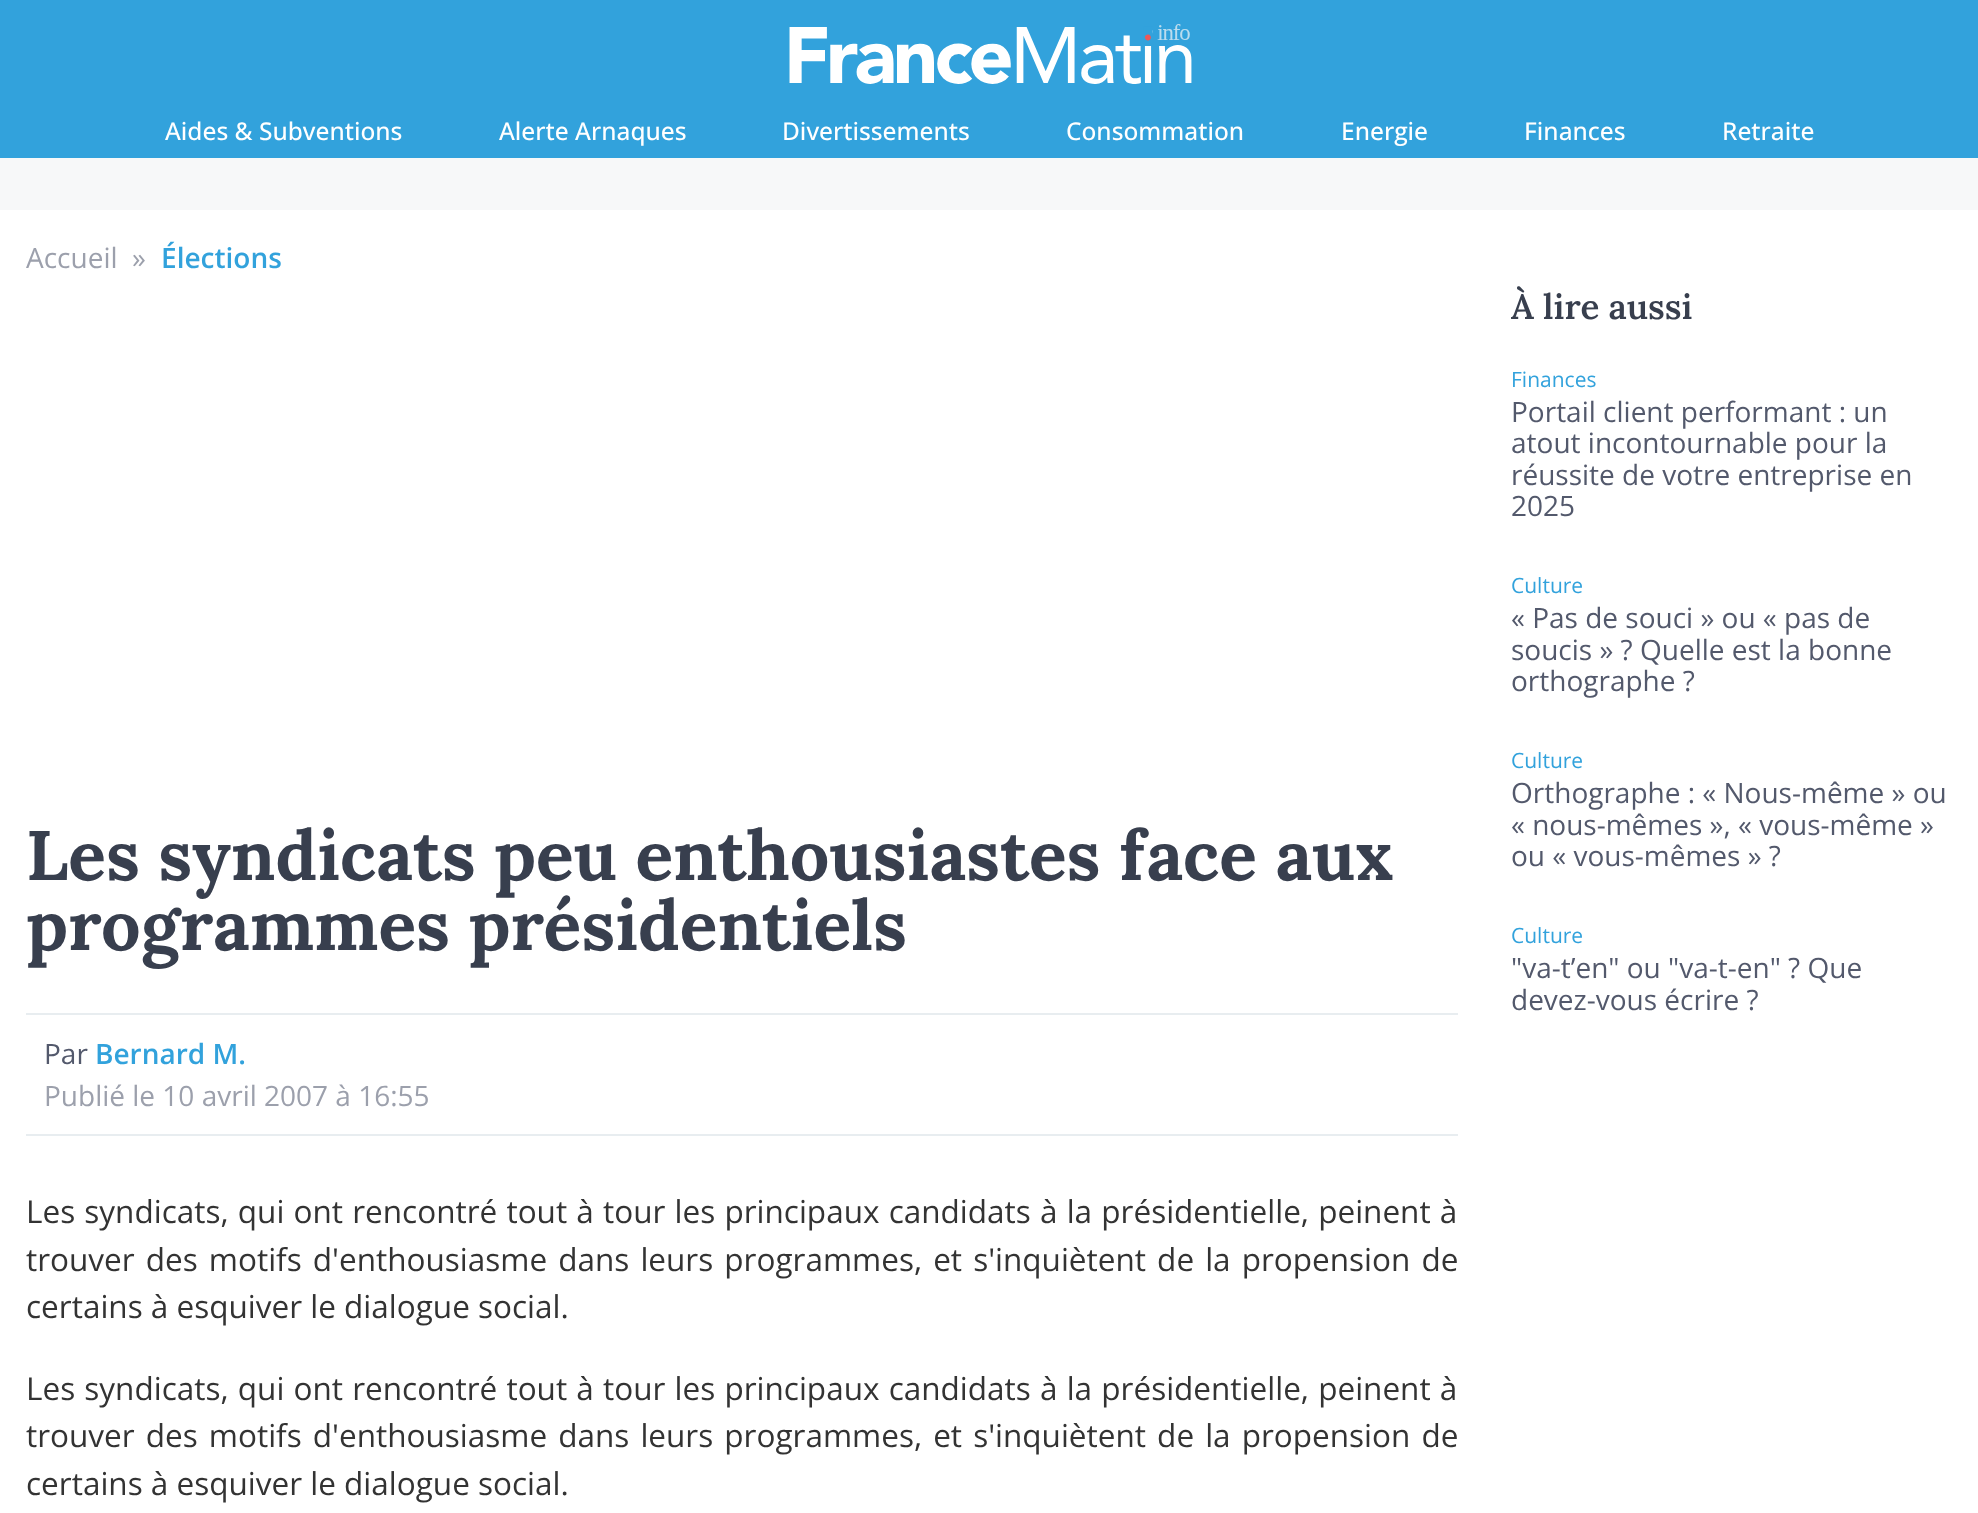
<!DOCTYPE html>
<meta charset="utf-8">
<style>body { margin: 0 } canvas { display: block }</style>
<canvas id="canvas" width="1978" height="1513"></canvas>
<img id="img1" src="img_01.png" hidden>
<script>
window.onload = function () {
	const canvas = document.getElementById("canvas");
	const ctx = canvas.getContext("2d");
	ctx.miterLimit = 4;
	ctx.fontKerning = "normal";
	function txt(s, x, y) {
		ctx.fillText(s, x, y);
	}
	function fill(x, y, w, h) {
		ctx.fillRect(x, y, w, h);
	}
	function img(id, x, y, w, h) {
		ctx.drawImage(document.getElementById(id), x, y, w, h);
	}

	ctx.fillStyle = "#F7F8F9";
	fill(0, 0, 1978, 1513);
	ctx.fillStyle = "#32A2DC";
	fill(0, 0, 1978, 158);
	img("img1", 789, 24, 403, 60);
	ctx.fillStyle = "#FFFFFF";
	fill(0, 210, 1978, 1303);
	ctx.fillStyle = "#E8EDF0";
	fill(26, 1013, 1432, 2);
	fill(26, 1134, 1432, 2);
	ctx.font = "500 24.5px Open Sans";
	ctx.fillStyle = "#FFFFFF";
	txt("Aides & Subventions", 165, 140);
	txt("Alerte Arnaques", 499, 140);
	txt("Divertissements", 782, 140);
	txt("Consommation", 1066, 140);
	txt("Energie", 1341, 140);
	txt("Finances", 1524, 140);
	txt("Retraite", 1722, 140);
	ctx.font = "28px Open Sans";
	ctx.fillStyle = "#9CA0AC";
	txt("Accueil", 26, 268);
	txt("»", 132, 268);
	ctx.font = "600 28px Open Sans";
	ctx.fillStyle = "#32A2DC";
	txt("Élections", 161, 268);
	ctx.font = "bold 70px Lora";
	ctx.fillStyle = "#383F4E";
	txt("Les syndicats peu enthousiastes face aux", 26, 880);
	txt("programmes présidentiels", 26, 950);
	ctx.font = "28px Open Sans";
	ctx.fillStyle = "#53596C";
	txt("Par", 44, 1064);
	ctx.font = "600 28px Open Sans";
	ctx.fillStyle = "#32A2DC";
	txt("Bernard M.", 95, 1064);
	ctx.font = "28px Open Sans";
	ctx.fillStyle = "#9CA0AC";
	txt("Publié le 10 avril 2007 à 16:55", 44, 1106);
	ctx.wordSpacing = "1px";
	ctx.font = "31.5px Open Sans";
	ctx.fillStyle = "#333333";
	txt("Les syndicats, qui ont rencontré tout à tour les principaux candidats à la présidentielle, peinent à", 26, 1223);
	ctx.wordSpacing = "2.9px";
	txt("trouver des motifs d'enthousiasme dans leurs programmes, et s'inquiètent de la propension de", 26, 1271);
	ctx.wordSpacing = "0px";
	txt("certains à esquiver le dialogue social.", 26, 1318);
	ctx.wordSpacing = "1px";
	txt("Les syndicats, qui ont rencontré tout à tour les principaux candidats à la présidentielle, peinent à", 26, 1400);
	ctx.wordSpacing = "2.9px";
	txt("trouver des motifs d'enthousiasme dans leurs programmes, et s'inquiètent de la propension de", 26, 1447);
	ctx.wordSpacing = "0px";
	txt("certains à esquiver le dialogue social.", 26, 1495);
	ctx.font = "600 35px Lora";
	ctx.fillStyle = "#383F4E";
	txt("À lire aussi", 1511, 319);
	ctx.font = "21px Open Sans";
	ctx.fillStyle = "#32A2DC";
	txt("Finances", 1511, 387);
	ctx.font = "28px Open Sans";
	ctx.fillStyle = "#53596C";
	txt("Portail client performant : un", 1511, 422);
	txt("atout incontournable pour la", 1511, 453);
	txt("réussite de votre entreprise en", 1511, 485);
	txt("2025", 1511, 516);
	ctx.font = "21px Open Sans";
	ctx.fillStyle = "#32A2DC";
	txt("Culture", 1511, 593);
	ctx.font = "28px Open Sans";
	ctx.fillStyle = "#53596C";
	txt("« Pas de souci » ou « pas de", 1511, 628);
	txt("soucis » ? Quelle est la bonne", 1511, 660);
	txt("orthographe ?", 1511, 691);
	ctx.font = "21px Open Sans";
	ctx.fillStyle = "#32A2DC";
	txt("Culture", 1511, 768);
	ctx.font = "28px Open Sans";
	ctx.fillStyle = "#53596C";
	txt("Orthographe : « Nous-même » ou", 1511, 803);
	txt("« nous-mêmes », « vous-même »", 1511, 835);
	txt("ou « vous-mêmes » ?", 1511, 866);
	ctx.font = "21px Open Sans";
	ctx.fillStyle = "#32A2DC";
	txt("Culture", 1511, 943);
	ctx.font = "28px Open Sans";
	ctx.fillStyle = "#53596C";
	txt("\"va-t’en\" ou \"va-t-en\" ? Que", 1511, 978);
	txt("devez-vous écrire ?", 1511, 1010);
};
</script>
